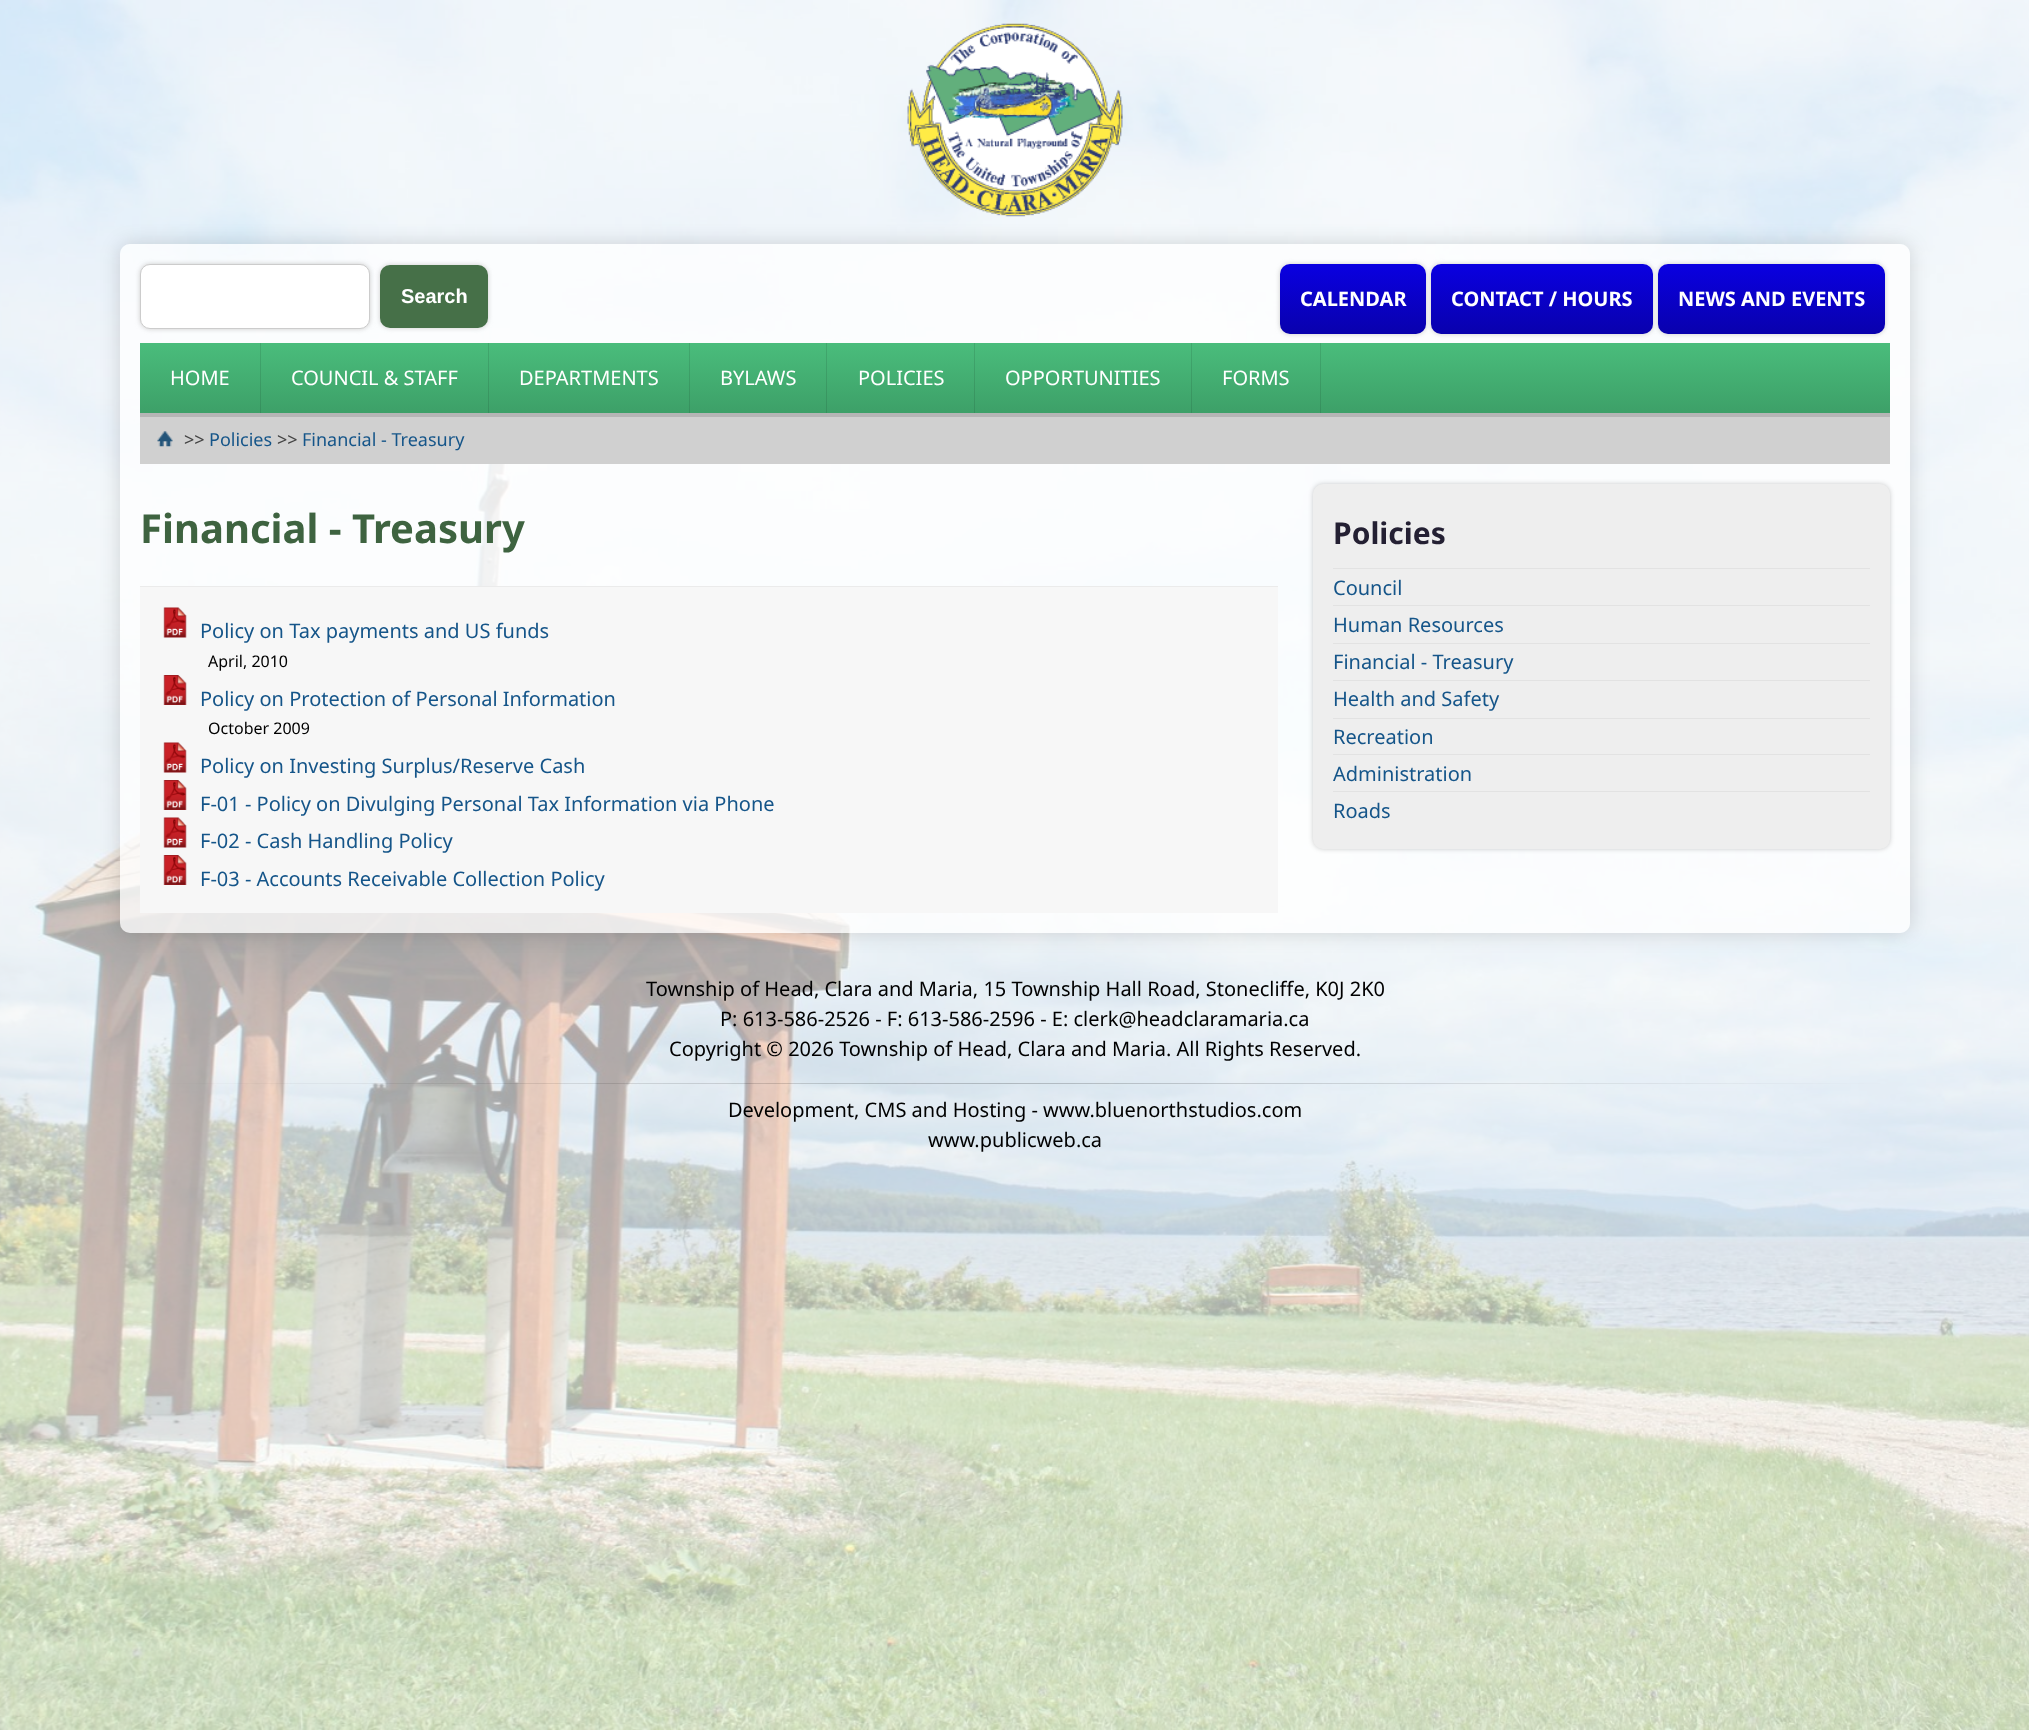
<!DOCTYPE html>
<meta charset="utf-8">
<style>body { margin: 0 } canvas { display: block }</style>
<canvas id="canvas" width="2029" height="1730"></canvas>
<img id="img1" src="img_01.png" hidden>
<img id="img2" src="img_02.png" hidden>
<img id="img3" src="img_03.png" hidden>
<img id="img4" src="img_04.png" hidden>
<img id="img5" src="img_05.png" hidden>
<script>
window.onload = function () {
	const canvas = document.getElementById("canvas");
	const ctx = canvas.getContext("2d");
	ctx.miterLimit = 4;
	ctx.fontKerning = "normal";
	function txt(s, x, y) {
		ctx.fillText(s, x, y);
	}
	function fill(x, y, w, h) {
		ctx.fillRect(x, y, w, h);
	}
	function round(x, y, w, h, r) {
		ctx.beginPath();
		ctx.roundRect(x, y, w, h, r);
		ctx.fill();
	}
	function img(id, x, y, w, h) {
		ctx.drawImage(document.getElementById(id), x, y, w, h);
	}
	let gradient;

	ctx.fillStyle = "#FFFFFF";
	fill(0, 0, 2029, 1730);
	img("img1", 0, 0, 2029, 1730);
	img("img2", 907, 23, 216, 194);
	ctx.save();
	ctx.beginPath();
	ctx.moveTo(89, 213);
	ctx.lineTo(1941, 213);
	ctx.lineTo(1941, 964);
	ctx.lineTo(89, 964);
	ctx.closePath();
	ctx.moveTo(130, 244);
	ctx.lineTo(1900, 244);
	ctx.bezierCurveTo(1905.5, 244, 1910, 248.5, 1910, 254);
	ctx.lineTo(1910, 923);
	ctx.bezierCurveTo(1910, 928.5, 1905.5, 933, 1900, 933);
	ctx.lineTo(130, 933);
	ctx.bezierCurveTo(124.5, 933, 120, 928.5, 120, 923);
	ctx.lineTo(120, 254);
	ctx.bezierCurveTo(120, 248.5, 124.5, 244, 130, 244);
	ctx.closePath();
	ctx.clip("evenodd");
	ctx.fillStyle = "rgba(0, 0, 0, 0.15)";
	ctx.filter = "blur(10px)";
	ctx.beginPath();
	ctx.roundRect(120, 244, 1790, 689, 10);
	ctx.fill();
	ctx.filter = "none";
	ctx.restore();
	ctx.fillStyle = "rgba(255, 255, 255, 0.75)";
	round(120, 244, 1790, 689, 10);
	ctx.fillStyle = "#CCCCCC";
	ctx.filter = "blur(2.5px)";
	ctx.beginPath();
	ctx.roundRect(140, 264, 230, 65, 10);
	ctx.fill();
	ctx.filter = "none";
	ctx.fillStyle = "#FFFFFF";
	ctx.beginPath();
	ctx.roundRect(140.5, 264.5, 229, 64, 9.5);
	ctx.fill();
	ctx.strokeStyle = "#CCCCCC";
	ctx.stroke();
	ctx.fillStyle = "#CCCCCC";
	ctx.filter = "blur(2.5px)";
	ctx.beginPath();
	ctx.roundRect(380, 265, 108, 63, 10);
	ctx.fill();
	ctx.filter = "none";
	ctx.fillStyle = "#467048";
	round(380, 265, 108, 63, 10);
	ctx.fillStyle = "#CCCCCC";
	ctx.filter = "blur(2.5px)";
	ctx.beginPath();
	ctx.roundRect(1658, 264, 227, 70, 10);
	ctx.fill();
	ctx.filter = "none";
	gradient = ctx.createLinearGradient(1771, 264, 1771, 334);
	gradient.addColorStop(0, "#0A00E1");
	gradient.addColorStop(1, "#0901AD");
	ctx.fillStyle = gradient;
	round(1658, 264, 227, 70, 10);
	ctx.fillStyle = "#CCCCCC";
	ctx.filter = "blur(2.5px)";
	ctx.beginPath();
	ctx.roundRect(1431, 264, 222, 70, 10);
	ctx.fill();
	ctx.filter = "none";
	gradient = ctx.createLinearGradient(1542, 264, 1542, 334);
	gradient.addColorStop(0, "#0A00E1");
	gradient.addColorStop(1, "#0901AD");
	ctx.fillStyle = gradient;
	round(1431, 264, 222, 70, 10);
	ctx.fillStyle = "#CCCCCC";
	ctx.filter = "blur(2.5px)";
	ctx.beginPath();
	ctx.roundRect(1280, 264, 146, 70, 10);
	ctx.fill();
	ctx.filter = "none";
	gradient = ctx.createLinearGradient(1353, 264, 1353, 334);
	gradient.addColorStop(0, "#0A00E1");
	gradient.addColorStop(1, "#0901AD");
	ctx.fillStyle = gradient;
	round(1280, 264, 146, 70, 10);
	gradient = ctx.createLinearGradient(1015, 342, 1015, 413);
	gradient.addColorStop(0, "#4ABD7C");
	gradient.addColorStop(1, "#3DA068");
	ctx.fillStyle = gradient;
	fill(140, 343, 1750, 70);
	ctx.fillStyle = "rgba(0, 0, 0, 0.1)";
	fill(260, 343, 1, 70);
	fill(488, 343, 1, 70);
	fill(689, 343, 1, 70);
	fill(826, 343, 1, 70);
	fill(974, 343, 1, 70);
	fill(1191, 343, 1, 70);
	fill(1320, 343, 1, 70);
	ctx.fillStyle = "#D0D0D0";
	fill(140, 417, 1750, 47);
	ctx.fillStyle = "#B5B5B5";
	fill(140, 413, 1750, 4);
	img("img3", 157, 431, 16, 16);
	ctx.fillStyle = "#F7F7F7";
	fill(140, 587, 1138, 326);
	ctx.fillStyle = "#EBEBEB";
	fill(140, 586, 1138, 1);
	img("img4", 163, 607, 24, 31);
	img("img5", 163, 675, 24, 30);
	img("img4", 163, 742, 24, 31);
	img("img5", 163, 780, 24, 30);
	img("img4", 163, 817, 24, 31);
	img("img5", 163, 855, 24, 30);
	ctx.fillStyle = "rgba(0, 0, 0, 0.2)";
	ctx.filter = "blur(2.5px)";
	ctx.beginPath();
	ctx.roundRect(1313, 484, 577, 365, 10);
	ctx.fill();
	ctx.filter = "none";
	ctx.fillStyle = "#EEEEEE";
	round(1313, 484, 577, 365, 10);
	ctx.fillStyle = "#E2E2E2";
	fill(1333, 568, 537, 1);
	fill(1333, 605, 537, 1);
	fill(1333, 643, 537, 1);
	fill(1333, 680, 537, 1);
	fill(1333, 718, 537, 1);
	fill(1333, 754, 537, 1);
	fill(1333, 791, 537, 1);
	ctx.font = "bold 20px Liberation Sans";
	ctx.fillStyle = "#FFFFFF";
	txt("Search", 401, 303);
	ctx.font = "bold 20px Noto Sans";
	txt("CALENDAR", 1300, 306);
	txt("CONTACT / HOURS", 1451, 306);
	txt("NEWS AND EVENTS", 1678, 306);
	ctx.font = "20px Noto Sans";
	txt("HOME", 170, 385);
	txt("COUNCIL & STAFF", 291, 385);
	txt("DEPARTMENTS", 519, 385);
	txt("BYLAWS", 720, 385);
	txt("POLICIES", 858, 385);
	txt("OPPORTUNITIES", 1005, 385);
	txt("FORMS", 1222, 385);
	ctx.font = "18px Noto Sans";
	ctx.fillStyle = "#444444";
	txt(">>", 184, 446);
	ctx.fillStyle = "#155589";
	txt("Policies", 209, 446);
	ctx.fillStyle = "#444444";
	txt(">>", 277, 446);
	ctx.fillStyle = "#155589";
	txt("Financial - Treasury", 302, 446);
	ctx.font = "bold 40px Noto Sans";
	ctx.fillStyle = "#3E6340";
	txt("Financial - Treasury", 140, 543);
	ctx.font = "20px Noto Sans";
	ctx.fillStyle = "#155589";
	txt("Policy on Tax payments and US funds", 200, 638);
	ctx.font = "16px Noto Sans";
	ctx.fillStyle = "#000000";
	txt("April, 2010", 208, 667);
	ctx.font = "20px Noto Sans";
	ctx.fillStyle = "#155589";
	txt("Policy on Protection of Personal Information", 200, 706);
	ctx.font = "16px Noto Sans";
	ctx.fillStyle = "#000000";
	txt("October 2009", 208, 734);
	ctx.font = "20px Noto Sans";
	ctx.fillStyle = "#155589";
	txt("Policy on Investing Surplus/Reserve Cash", 200, 773);
	txt("F-01 - Policy on Divulging Personal Tax Information via Phone", 200, 811);
	txt("F-02 - Cash Handling Policy", 200, 848);
	txt("F-03 - Accounts Receivable Collection Policy", 200, 886);
	ctx.font = "bold 30px Noto Sans";
	ctx.fillStyle = "#242033";
	txt("Policies", 1333, 544);
	ctx.font = "20px Noto Sans";
	ctx.fillStyle = "#155589";
	txt("Council", 1333, 595);
	txt("Human Resources", 1333, 632);
	txt("Financial - Treasury", 1333, 669);
	txt("Health and Safety", 1333, 706);
	txt("Recreation", 1333, 744);
	txt("Administration", 1333, 781);
	txt("Roads", 1333, 818);
	ctx.fillStyle = "#000000";
	txt("Township of Head, Clara and Maria, 15 Township Hall Road, Stonecliffe, K0J 2K0", 646, 996);
	txt("P: 613-586-2526 - F: 613-586-2596 - E: clerk@headclaramaria.ca", 720, 1026);
	txt("Copyright © 2026 Township of Head, Clara and Maria. All Rights Reserved.", 669, 1056);
	txt("Development, CMS and Hosting - www.bluenorthstudios.com", 728, 1117);
	txt("www.publicweb.ca", 928, 1147);
};
</script>
